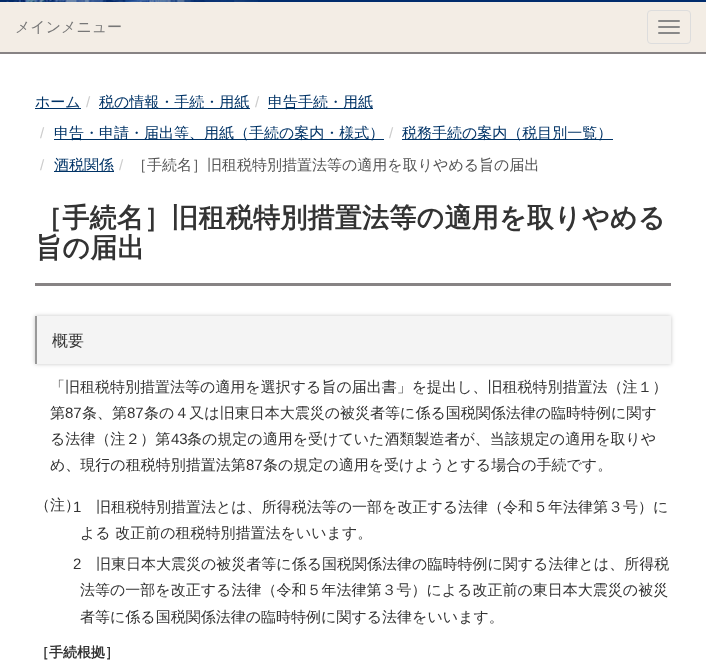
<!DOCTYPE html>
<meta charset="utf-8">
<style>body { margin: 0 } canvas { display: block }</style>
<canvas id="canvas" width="706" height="663"></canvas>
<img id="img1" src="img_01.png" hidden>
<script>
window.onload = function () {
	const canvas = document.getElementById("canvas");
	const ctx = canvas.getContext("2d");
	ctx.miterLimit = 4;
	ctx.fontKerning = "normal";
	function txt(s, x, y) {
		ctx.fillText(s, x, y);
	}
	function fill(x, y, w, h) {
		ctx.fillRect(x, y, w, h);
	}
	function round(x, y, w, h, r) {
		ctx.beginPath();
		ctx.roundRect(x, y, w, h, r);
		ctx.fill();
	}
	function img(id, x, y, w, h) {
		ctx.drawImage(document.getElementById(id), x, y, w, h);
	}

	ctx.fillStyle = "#FFFFFF";
	fill(0, 0, 706, 663);
	ctx.fillStyle = "#002C6D";
	fill(258, 0, 448, 2);
	img("img1", 0, 0, 258, 2);
	ctx.fillStyle = "#F3EDE5";
	fill(0, 2, 706, 50);
	ctx.fillStyle = "#878384";
	fill(0, 52, 706, 2);
	ctx.beginPath();
	ctx.roundRect(647.5, 10.5, 43, 33, 3.5);
	ctx.strokeStyle = "#DDDDDD";
	ctx.stroke();
	ctx.fillStyle = "#888888";
	round(658, 20, 22, 2, 1);
	round(658, 26, 22, 2, 1);
	round(658, 32, 22, 2, 1);
	ctx.fillStyle = "#003366";
	fill(35, 108, 46, 1);
	fill(99, 108, 151, 1);
	fill(268, 108, 105, 1);
	fill(54, 139, 330, 1);
	fill(402, 139, 211, 1);
	fill(54, 171, 60, 1);
	ctx.fillStyle = "#878384";
	fill(35, 283, 636, 3);
	ctx.fillStyle = "rgba(0, 0, 0, 0.23)";
	ctx.filter = "blur(2px)";
	ctx.beginPath();
	ctx.rect(35, 316, 636, 48);
	ctx.fill();
	ctx.filter = "none";
	ctx.fillStyle = "#F4F4F4";
	fill(37, 316, 634, 48);
	ctx.fillStyle = "#999999";
	fill(35, 316, 2, 48);
	ctx.font = "500 15px WenQuanYi Zen Hei";
	ctx.fillStyle = "#777777";
	txt("メインメニュー", 15, 32);
	ctx.fillStyle = "#003366";
	txt("ホーム", 35, 107);
	ctx.font = "15px Liberation Sans";
	ctx.fillStyle = "#CCCCCC";
	txt("/", 86, 107);
	ctx.font = "500 15px WenQuanYi Zen Hei";
	ctx.fillStyle = "#003366";
	txt("税の情報・手続・用紙", 99, 107);
	ctx.font = "15px Liberation Sans";
	ctx.fillStyle = "#CCCCCC";
	txt("/", 255, 107);
	ctx.font = "500 15px WenQuanYi Zen Hei";
	ctx.fillStyle = "#003366";
	txt("申告手続・用紙", 268, 107);
	ctx.font = "15px Liberation Sans";
	ctx.fillStyle = "#CCCCCC";
	txt("/", 40, 138);
	ctx.font = "500 15px WenQuanYi Zen Hei";
	ctx.fillStyle = "#003366";
	txt("申告・申請・届出等、用紙（手続の案内・様式）", 54, 138);
	ctx.font = "15px Liberation Sans";
	ctx.fillStyle = "#CCCCCC";
	txt("/", 389, 138);
	ctx.font = "500 15px WenQuanYi Zen Hei";
	ctx.fillStyle = "#003366";
	txt("税務手続の案内（税目別一覧）", 402, 138);
	ctx.font = "15px Liberation Sans";
	ctx.fillStyle = "#CCCCCC";
	txt("/", 40, 170);
	ctx.font = "500 15px WenQuanYi Zen Hei";
	ctx.fillStyle = "#003366";
	txt("酒税関係", 54, 170);
	ctx.font = "15px Liberation Sans";
	ctx.fillStyle = "#CCCCCC";
	txt("/", 119, 170);
	ctx.font = "500 15px WenQuanYi Zen Hei";
	ctx.fillStyle = "#555555";
	txt("［手続名］旧租税特別措置法等の適用を取りやめる旨の届出", 132, 170);
	ctx.letterSpacing = "0.25px";
	ctx.font = "bold 27px WenQuanYi Zen Hei";
	ctx.fillStyle = "#333333";
	txt("［手続名］旧租税特別措置法等の適用を取りやめる", 35, 227);
	txt("旨の届出", 35, 257);
	ctx.letterSpacing = "0px";
	ctx.font = "500 16px WenQuanYi Zen Hei";
	txt("概要", 52, 346);
	ctx.font = "500 15px WenQuanYi Zen Hei";
	txt("「旧租税特別措置法等の適用を選択する旨の届出書」を提出し、旧租税特別措置法（注１）", 50, 392);
	txt("第", 50, 418);
	ctx.font = "15px Liberation Sans";
	txt("87", 65, 418);
	ctx.font = "500 15px WenQuanYi Zen Hei";
	txt("条、第", 82, 418);
	ctx.font = "15px Liberation Sans";
	txt("87", 127, 418);
	ctx.font = "500 15px WenQuanYi Zen Hei";
	txt("条の４又は旧東日本大震災の被災者等に係る国税関係法律の臨時特例に関す", 144, 418);
	txt("る法律（注２）第", 50, 444);
	ctx.font = "15px Liberation Sans";
	txt("43", 171, 444);
	ctx.font = "500 15px WenQuanYi Zen Hei";
	txt("条の規定の適用を受けていた酒類製造者が、当該規定の適用を取りや", 187, 444);
	txt("め、現行の租税特別措置法第", 50, 470);
	ctx.font = "15px Liberation Sans";
	txt("87", 246, 470);
	ctx.font = "500 15px WenQuanYi Zen Hei";
	txt("条の規定の適用を受けようとする場合の手続です。", 263, 470);
	txt("（注）", 35, 510);
	ctx.font = "15px Liberation Sans";
	txt("1", 73, 512);
	ctx.font = "500 15px WenQuanYi Zen Hei";
	txt("旧租税特別措置法とは、所得税法等の一部を改正する法律（令和５年法律第３号）に", 96, 512);
	txt("よる 改正前の租税特別措置法をいいます。", 80, 538);
	ctx.font = "15px Liberation Sans";
	txt("2", 73, 569);
	ctx.font = "500 15px WenQuanYi Zen Hei";
	txt("旧東日本大震災の被災者等に係る国税関係法律の臨時特例に関する法律とは、所得税", 96, 569);
	txt("法等の一部を改正する法律（令和５年法律第３号）による改正前の東日本大震災の被災", 80, 595);
	txt("者等に係る国税関係法律の臨時特例に関する法律をいいます。", 80, 622);
	ctx.font = "bold 14px WenQuanYi Zen Hei";
	txt("［手続根拠］", 35, 657);
};
</script>
